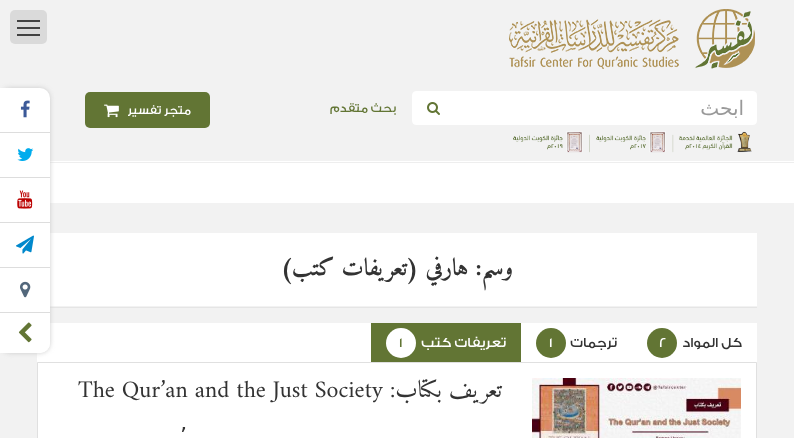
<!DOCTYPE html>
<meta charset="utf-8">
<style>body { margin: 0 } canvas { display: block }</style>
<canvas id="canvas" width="794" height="438"></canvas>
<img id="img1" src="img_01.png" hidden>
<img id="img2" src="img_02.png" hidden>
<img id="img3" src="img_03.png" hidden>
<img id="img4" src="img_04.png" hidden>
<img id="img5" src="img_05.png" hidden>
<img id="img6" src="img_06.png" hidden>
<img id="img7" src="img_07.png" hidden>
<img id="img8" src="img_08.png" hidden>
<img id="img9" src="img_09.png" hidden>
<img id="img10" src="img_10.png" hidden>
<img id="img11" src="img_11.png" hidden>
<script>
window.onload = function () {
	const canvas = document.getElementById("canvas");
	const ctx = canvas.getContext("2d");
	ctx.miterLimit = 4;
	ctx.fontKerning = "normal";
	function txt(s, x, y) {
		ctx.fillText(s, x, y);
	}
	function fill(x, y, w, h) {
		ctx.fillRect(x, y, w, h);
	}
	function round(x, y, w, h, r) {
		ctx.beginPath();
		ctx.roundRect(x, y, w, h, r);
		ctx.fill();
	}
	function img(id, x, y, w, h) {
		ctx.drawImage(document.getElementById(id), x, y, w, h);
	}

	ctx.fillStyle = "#FFFFFF";
	fill(0, 0, 794, 438);
	ctx.fillStyle = "#F2F2F2";
	fill(0, 0, 794, 161);
	ctx.fillStyle = "#DADADA";
	round(10, 10, 37, 34, 5);
	ctx.fillStyle = "#424242";
	fill(17, 27, 23, 2);
	fill(17, 20, 23, 2);
	fill(17, 34, 23, 2);
	img("img1", 509, 9, 246, 60);
	ctx.fillStyle = "#FFFFFF";
	ctx.beginPath();
	ctx.roundRect(412.5, 91.5, 344, 33, 3.5);
	ctx.fill();
	ctx.strokeStyle = "#FFFFFF";
	ctx.stroke();
	img("img2", 427, 102, 13, 13);
	ctx.fillStyle = "#627534";
	round(85, 92, 125, 36, 5);
	img("img3", 104, 104, 15, 14);
	img("img4", 513, 131, 239, 22);
	ctx.fillStyle = "#EEEEEE";
	fill(50, 162, 744, 1);
	ctx.fillStyle = "#F2F2F2";
	fill(0, 203, 794, 235);
	ctx.fillStyle = "#FFFFFF";
	fill(50, 233, 707, 73);
	ctx.fillStyle = "#E5E5E5";
	fill(50, 307, 707, 1);
	ctx.fillStyle = "#FFFFFF";
	fill(37, 323, 720, 39);
	ctx.fillStyle = "#CCCCCC";
	ctx.filter = "blur(2.5px)";
	ctx.beginPath();
	ctx.roundRect(0, 88, 50, 265, 10);
	ctx.fill();
	ctx.filter = "none";
	ctx.fillStyle = "#FFFFFF";
	ctx.beginPath();
	ctx.roundRect(0, 88, 50, 265, [0, 10, 10, 0]);
	ctx.fill();
	img("img5", 20, 100, 10, 18);
	ctx.fillStyle = "#DDDDDD";
	fill(0, 132, 50, 1);
	img("img6", 17, 148, 17, 13);
	fill(0, 177, 50, 1);
	img("img7", 17, 190, 16, 19);
	fill(0, 222, 50, 1);
	img("img8", 16, 235, 18, 19);
	fill(0, 267, 50, 1);
	img("img9", 20, 281, 11, 17);
	fill(0, 312, 50, 1);
	ctx.fillStyle = "#FFFFFF";
	ctx.beginPath();
	ctx.roundRect(0, 313, 50, 40, [0, 10, 10, 0]);
	ctx.fill();
	img("img10", 18, 322, 14, 21);
	ctx.fillStyle = "#627534";
	ctx.beginPath();
	ctx.arc(662, 343, 15, 0, Math.PI * 2);
	ctx.fill();
	ctx.beginPath();
	ctx.arc(551, 343, 15, 0, Math.PI * 2);
	ctx.fill();
	fill(371, 323, 150, 39);
	ctx.fillStyle = "#FFFFFF";
	ctx.beginPath();
	ctx.arc(401, 343, 15, 0, Math.PI * 2);
	ctx.fill();
	ctx.beginPath();
	ctx.rect(37.5, 362.5, 719, 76);
	ctx.fill();
	ctx.strokeStyle = "#E0E0E0";
	ctx.stroke();
	img("img11", 532, 378, 209, 60);
	ctx.direction = "rtl";
	ctx.font = "20px DejaVu Sans";
	ctx.fillStyle = "#999999";
	txt("ابحث", 744, 115);
	ctx.font = "500 12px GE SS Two";
	ctx.fillStyle = "#627534";
	txt("بحث متقدم", 396, 112);
	ctx.fillStyle = "#FFFFFF";
	txt("متجر تفسير", 191, 114);
	ctx.font = "bold 24px Amiri";
	ctx.fillStyle = "#333333";
	txt("وسم: هارفي (تعريفات كتب)", 513, 275);
	ctx.font = "500 14px GE SS Two";
	txt("كل المواد", 742, 347);
	ctx.direction = "ltr";
	ctx.fillStyle = "#FFFFFF";
	txt("2", 659, 347);
	ctx.direction = "rtl";
	ctx.fillStyle = "#333333";
	txt("ترجمات", 617, 347);
	ctx.direction = "ltr";
	ctx.fillStyle = "#FFFFFF";
	txt("1", 549, 347);
	ctx.direction = "rtl";
	txt("تعريفات كتب", 506, 347);
	ctx.direction = "ltr";
	ctx.fillStyle = "#627534";
	txt("1", 399, 347);
	ctx.direction = "rtl";
	ctx.font = "24px Amiri";
	ctx.fillStyle = "#333333";
	txt("تعريف بكتاب:", 502, 397);
	ctx.direction = "ltr";
	txt("The Qur’an and the Just Society", 78, 397);
	ctx.wordSpacing = "-1px";
	ctx.font = "22px DejaVu Sans";
	txt("’", 180, 443);
};
</script>
